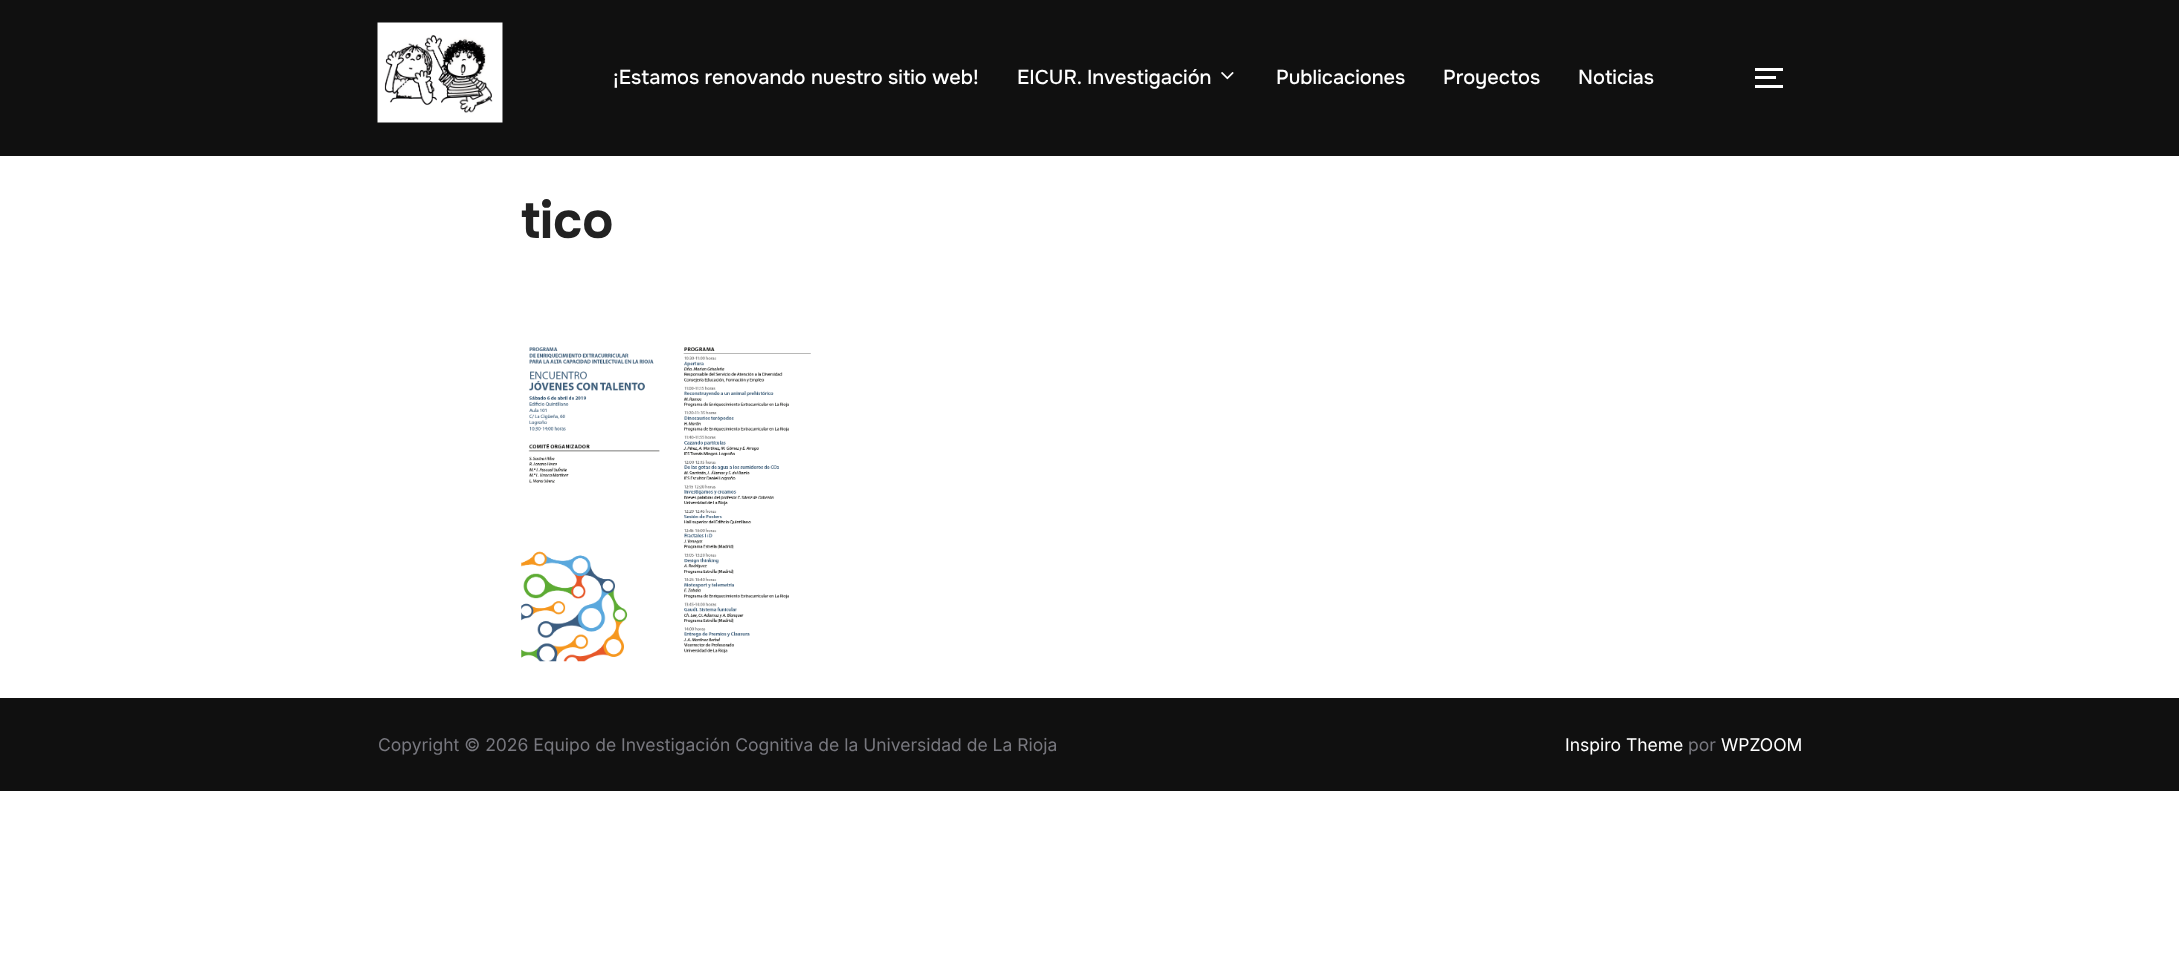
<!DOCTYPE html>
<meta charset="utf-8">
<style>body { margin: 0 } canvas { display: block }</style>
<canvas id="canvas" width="2179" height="954"></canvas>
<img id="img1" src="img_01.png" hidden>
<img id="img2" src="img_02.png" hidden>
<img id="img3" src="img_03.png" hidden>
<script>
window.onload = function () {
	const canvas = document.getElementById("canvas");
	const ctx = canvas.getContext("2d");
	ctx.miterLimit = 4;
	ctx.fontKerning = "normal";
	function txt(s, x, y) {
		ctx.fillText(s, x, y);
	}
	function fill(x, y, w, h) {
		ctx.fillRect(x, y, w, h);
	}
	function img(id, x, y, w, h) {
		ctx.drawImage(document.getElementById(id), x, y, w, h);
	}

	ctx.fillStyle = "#FFFFFF";
	fill(0, 0, 2179, 954);
	ctx.fillStyle = "#101010";
	fill(0, 0, 2179, 156);
	img("img1", 377, 22, 126, 101);
	img("img2", 1221, 72, 13, 8);
	ctx.fillStyle = "#FFFFFF";
	fill(1755, 68, 28, 3);
	fill(1755, 76, 21, 3);
	fill(1755, 85, 28, 3);
	img("img3", 521, 347, 290, 315);
	ctx.fillStyle = "#101010";
	fill(0, 698, 2179, 93);
	ctx.font = "500 20px Onest";
	ctx.fillStyle = "#FFFFFF";
	txt("¡Estamos renovando nuestro sitio web!", 613, 84);
	txt("EICUR. Investigación", 1017, 84);
	txt("Publicaciones", 1276, 84);
	txt("Proyectos", 1443, 84);
	txt("Noticias", 1578, 84);
	ctx.font = "bold 52px Onest";
	ctx.fillStyle = "#222222";
	txt("tico", 521, 238);
	ctx.font = "17.5px Inter";
	ctx.fillStyle = "#78787F";
	txt("Copyright © 2026 Equipo de Investigación Cognitiva de la Universidad de La Rioja", 378, 751);
	ctx.fillStyle = "#FFFFFF";
	txt("Inspiro Theme", 1565, 751);
	ctx.fillStyle = "#78787F";
	txt("por", 1688, 751);
	ctx.fillStyle = "#FFFFFF";
	txt("WPZOOM", 1721, 751);
};
</script>
